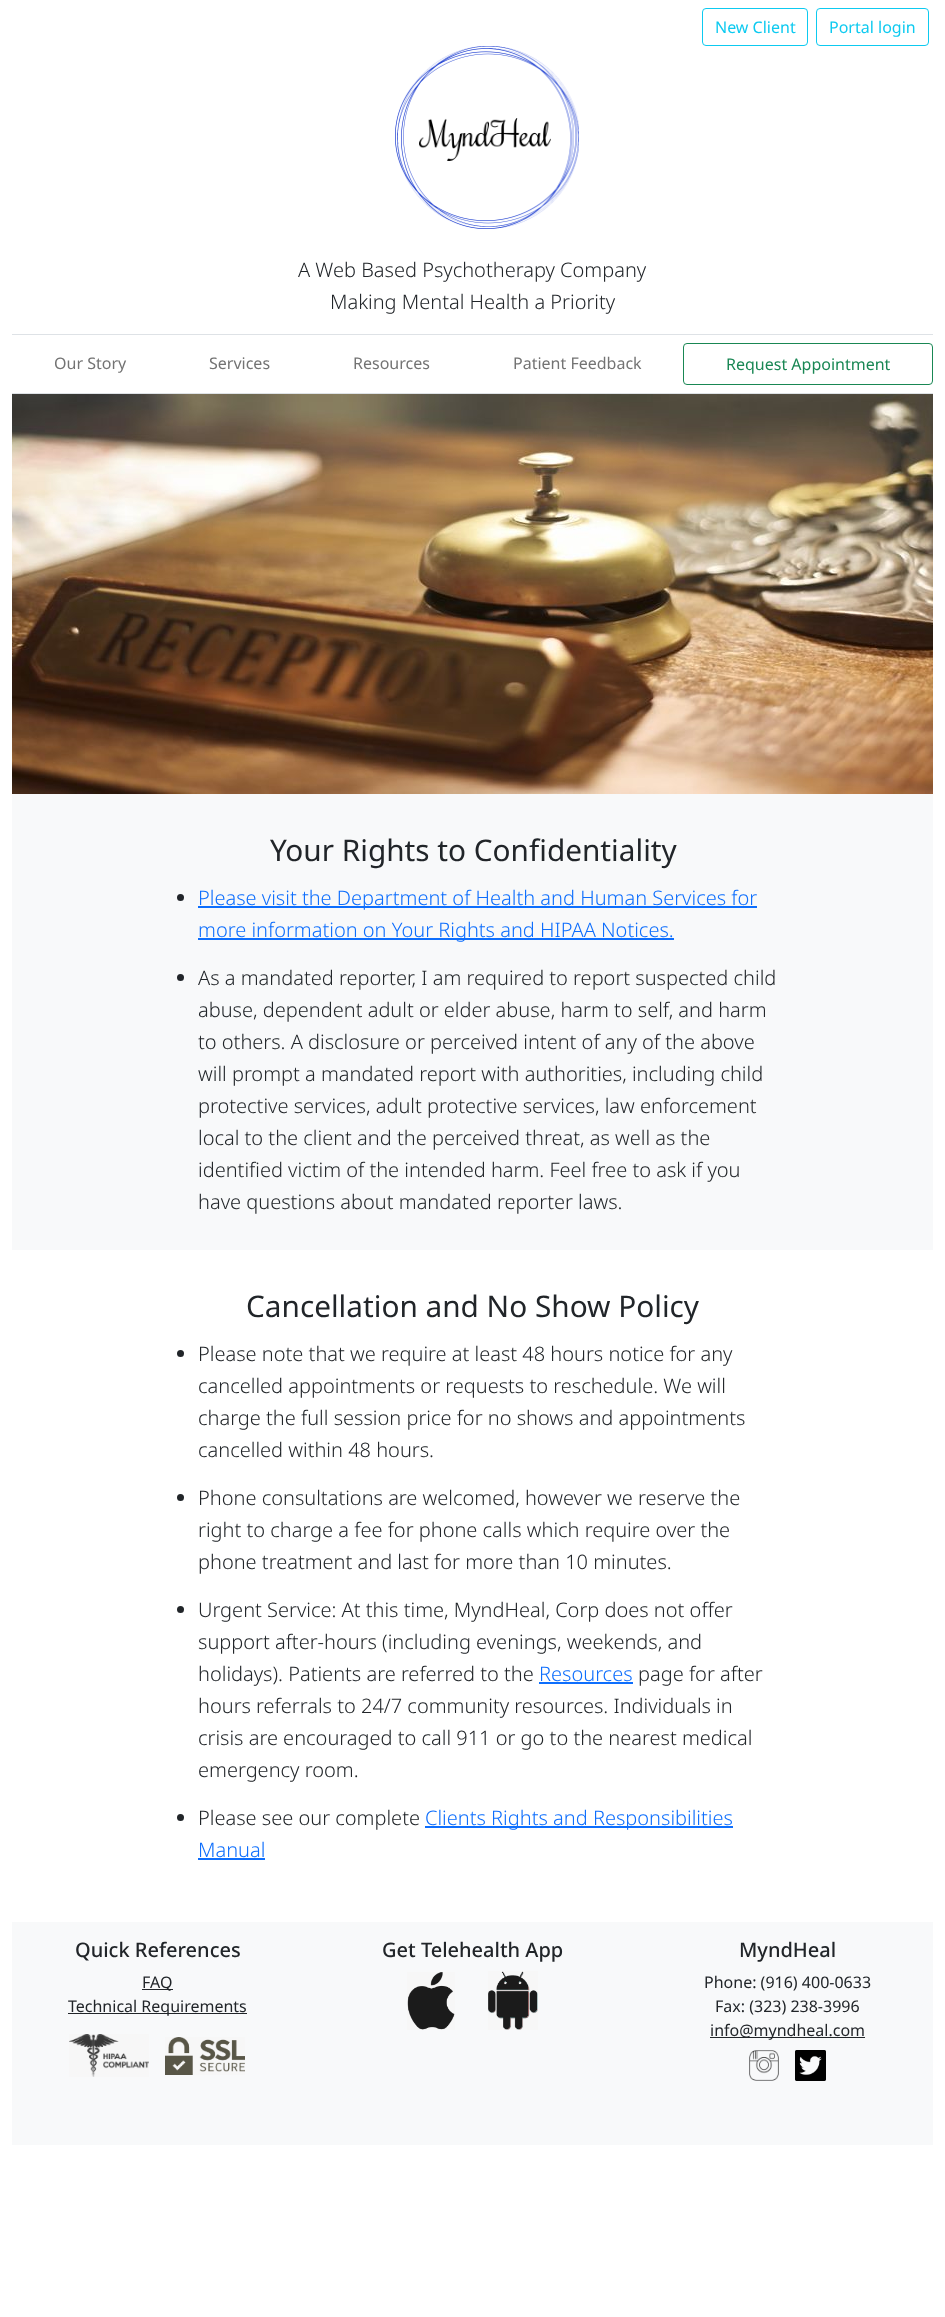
<!DOCTYPE html>
<meta charset="utf-8">
<style>body { margin: 0 } canvas { display: block }</style>
<canvas id="canvas" width="945" height="2317"></canvas>
<img id="img1" src="img_02.png" hidden>
<img id="img2" src="img_01.png" hidden>
<img id="img3" src="img_03.png" hidden>
<img id="img4" src="img_04.png" hidden>
<img id="img5" src="img_05.png" hidden>
<img id="img6" src="img_06.png" hidden>
<img id="img7" src="img_07.png" hidden>
<img id="img8" src="img_08.png" hidden>
<img id="img9" src="img_09.png" hidden>
<script>
window.onload = function () {
	const canvas = document.getElementById("canvas");
	const ctx = canvas.getContext("2d");
	ctx.miterLimit = 4;
	ctx.fontKerning = "normal";
	function txt(s, x, y) {
		ctx.fillText(s, x, y);
	}
	function fill(x, y, w, h) {
		ctx.fillRect(x, y, w, h);
	}
	function img(id, x, y, w, h) {
		ctx.drawImage(document.getElementById(id), x, y, w, h);
	}

	ctx.fillStyle = "#FFFFFF";
	fill(0, 0, 945, 2317);
	ctx.beginPath();
	ctx.roundRect(702.5, 8.5, 105, 37, 3.5);
	ctx.strokeStyle = "#0DCAF0";
	ctx.stroke();
	ctx.beginPath();
	ctx.roundRect(816.5, 8.5, 112, 37, 3.5);
	ctx.stroke();
	img("img1", 419, 118, 132, 43);
	img("img2", 395, 46, 184, 183);
	ctx.fillStyle = "#DEE2E6";
	fill(12, 334, 921, 1);
	fill(12, 393, 921, 1);
	ctx.beginPath();
	ctx.roundRect(683.5, 343.5, 249, 41, 3.5);
	ctx.strokeStyle = "#198754";
	ctx.stroke();
	img("img3", 12, 394, 921, 400);
	ctx.fillStyle = "#F8F9FA";
	fill(12, 794, 921, 456);
	ctx.fillStyle = "#212529";
	ctx.beginPath();
	ctx.arc(180.5, 897.5, 3.5, 0, Math.PI * 2);
	ctx.fill();
	ctx.fillStyle = "#0D6EFD";
	fill(198, 906, 559, 2);
	fill(198, 938, 476, 2);
	ctx.fillStyle = "#212529";
	ctx.beginPath();
	ctx.arc(180.5, 977.5, 3.5, 0, Math.PI * 2);
	ctx.fill();
	ctx.beginPath();
	ctx.arc(180.5, 1353.5, 3.5, 0, Math.PI * 2);
	ctx.fill();
	ctx.beginPath();
	ctx.arc(180.5, 1497.5, 3.5, 0, Math.PI * 2);
	ctx.fill();
	ctx.beginPath();
	ctx.arc(180.5, 1609.5, 3.5, 0, Math.PI * 2);
	ctx.fill();
	ctx.fillStyle = "#0D6EFD";
	fill(539, 1682, 94, 2);
	ctx.fillStyle = "#212529";
	ctx.beginPath();
	ctx.arc(180.5, 1817.5, 3.5, 0, Math.PI * 2);
	ctx.fill();
	ctx.fillStyle = "#0D6EFD";
	fill(425, 1826, 308, 2);
	fill(198, 1858, 67, 2);
	ctx.fillStyle = "#F8F9FA";
	fill(12, 1922, 921, 223);
	ctx.fillStyle = "#212529";
	fill(142, 1989, 31, 1);
	fill(68, 2013, 179, 1);
	img("img4", 69, 2034, 80, 43);
	img("img5", 165, 2037, 80, 38);
	img("img6", 407, 1972, 48, 58);
	img("img7", 488, 1971, 50, 59);
	fill(710, 2037, 155, 1);
	img("img8", 749, 2050, 30, 31);
	img("img9", 795, 2050, 31, 31);
	ctx.font = "16px Noto Sans";
	ctx.fillStyle = "#0DCAF0";
	txt("New Client", 715, 33);
	txt("Portal login", 829, 33);
	ctx.font = "300 20px Noto Sans";
	ctx.fillStyle = "#212529";
	txt("A Web Based Psychotherapy Company", 298, 277);
	txt("Making Mental Health a Priority", 330, 309);
	ctx.font = "16px Noto Sans";
	ctx.fillStyle = "#737373";
	txt("Our Story", 54, 369);
	txt("Services", 209, 369);
	txt("Resources", 353, 369);
	txt("Patient Feedback", 513, 369);
	ctx.fillStyle = "#198754";
	txt("Request Appointment", 726, 370);
	ctx.font = "29.75px Noto Sans";
	ctx.fillStyle = "#212529";
	txt("Your Rights to Confidentiality", 270, 861);
	ctx.font = "300 20px Noto Sans";
	ctx.fillStyle = "#0D6EFD";
	txt("Please visit the Department of Health and Human Services for", 198, 905);
	txt("more information on Your Rights and HIPAA Notices.", 198, 937);
	ctx.fillStyle = "#212529";
	txt("As a mandated reporter, I am required to report suspected child", 198, 985);
	txt("abuse, dependent adult or elder abuse, harm to self, and harm", 198, 1017);
	txt("to others. A disclosure or perceived intent of any of the above", 198, 1049);
	txt("will prompt a mandated report with authorities, including child", 198, 1081);
	txt("protective services, adult protective services, law enforcement", 198, 1113);
	txt("local to the client and the perceived threat, as well as the", 198, 1145);
	txt("identified victim of the intended harm. Feel free to ask if you", 198, 1177);
	txt("have questions about mandated reporter laws.", 198, 1209);
	ctx.font = "29.75px Noto Sans";
	txt("Cancellation and No Show Policy", 246, 1317);
	ctx.font = "300 20px Noto Sans";
	txt("Please note that we require at least 48 hours notice for any", 198, 1361);
	txt("cancelled appointments or requests to reschedule. We will", 198, 1393);
	txt("charge the full session price for no shows and appointments", 198, 1425);
	txt("cancelled within 48 hours.", 198, 1457);
	txt("Phone consultations are welcomed, however we reserve the", 198, 1505);
	txt("right to charge a fee for phone calls which require over the", 198, 1537);
	txt("phone treatment and last for more than 10 minutes.", 198, 1569);
	txt("Urgent Service: At this time, MyndHeal, Corp does not offer", 198, 1617);
	txt("support after-hours (including evenings, weekends, and", 198, 1649);
	txt("holidays). Patients are referred to the", 198, 1681);
	ctx.fillStyle = "#0D6EFD";
	txt("Resources", 539, 1681);
	ctx.fillStyle = "#212529";
	txt("page for after", 638, 1681);
	txt("hours referrals to 24/7 community resources. Individuals in", 198, 1713);
	txt("crisis are encouraged to call 911 or go to the nearest medical", 198, 1745);
	txt("emergency room.", 198, 1777);
	txt("Please see our complete", 198, 1825);
	ctx.fillStyle = "#0D6EFD";
	txt("Clients Rights and Responsibilities", 425, 1825);
	txt("Manual", 198, 1857);
	ctx.font = "500 20px Noto Sans";
	ctx.fillStyle = "#212529";
	txt("Quick References", 75, 1957);
	ctx.font = "16px Noto Sans";
	txt("FAQ", 142, 1988);
	txt("Technical Requirements", 68, 2012);
	ctx.font = "500 20px Noto Sans";
	txt("Get Telehealth App", 382, 1957);
	txt("MyndHeal", 739, 1957);
	ctx.font = "16px Noto Sans";
	txt("Phone: (916) 400-0633", 704, 1988);
	txt("Fax: (323) 238-3996", 715, 2012);
	txt("info@myndheal.com", 710, 2036);
};
</script>
